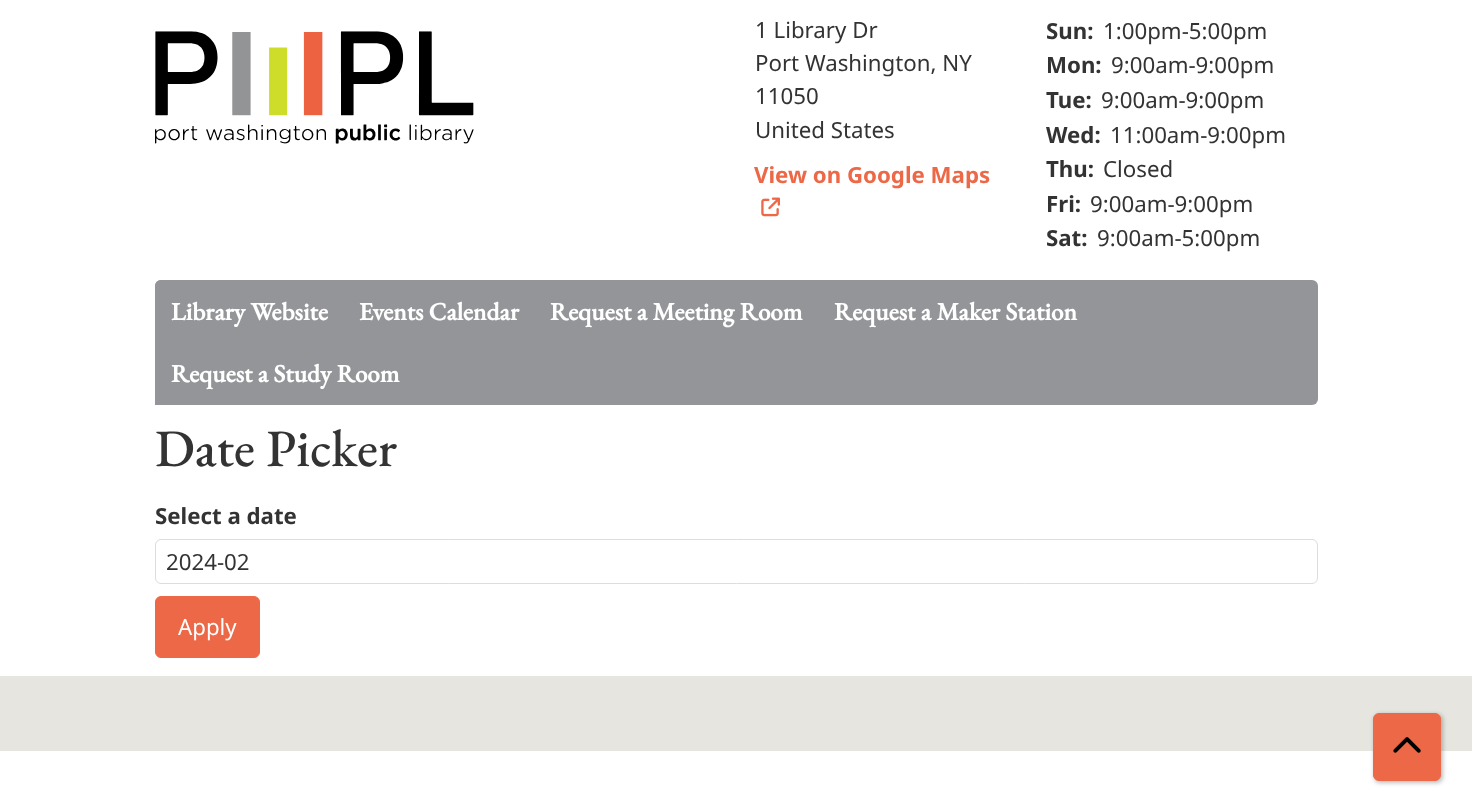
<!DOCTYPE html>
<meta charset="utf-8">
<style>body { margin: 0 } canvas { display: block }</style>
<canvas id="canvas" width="1472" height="812"></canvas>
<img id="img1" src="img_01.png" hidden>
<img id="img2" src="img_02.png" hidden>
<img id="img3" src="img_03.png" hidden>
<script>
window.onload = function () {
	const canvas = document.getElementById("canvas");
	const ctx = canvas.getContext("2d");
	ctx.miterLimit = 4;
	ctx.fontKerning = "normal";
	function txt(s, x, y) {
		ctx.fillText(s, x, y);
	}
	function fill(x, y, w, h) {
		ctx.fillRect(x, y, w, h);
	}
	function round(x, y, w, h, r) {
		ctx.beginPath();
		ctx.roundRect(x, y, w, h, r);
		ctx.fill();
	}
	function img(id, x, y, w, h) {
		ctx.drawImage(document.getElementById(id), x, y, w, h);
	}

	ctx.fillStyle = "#FFFFFF";
	fill(0, 0, 1472, 812);
	img("img1", 155, 31, 319, 113);
	img("img2", 761, 197, 19, 20);
	ctx.fillStyle = "#939598";
	round(155, 280, 1163, 125, 6);
	ctx.beginPath();
	ctx.roundRect(155, 280, 189, 63, [6, 0, 0, 6]);
	ctx.fill();
	fill(155, 399, 6, 6);
	ctx.beginPath();
	ctx.roundRect(155.5, 539.5, 1162, 44, 5.5);
	ctx.strokeStyle = "#DDDDDD";
	ctx.stroke();
	ctx.fillStyle = "#EC6846";
	ctx.beginPath();
	ctx.roundRect(155.5, 596.5, 104, 61, 5.5);
	ctx.fill();
	ctx.strokeStyle = "#EC6846";
	ctx.stroke();
	ctx.fillStyle = "#E7E5E0";
	fill(0, 676, 1472, 75);
	ctx.fillStyle = "rgba(0, 0, 0, 0.25)";
	ctx.filter = "blur(2px)";
	ctx.beginPath();
	ctx.roundRect(1374, 714, 69, 69, 6);
	ctx.fill();
	ctx.filter = "none";
	ctx.fillStyle = "#EC6846";
	ctx.beginPath();
	ctx.roundRect(1373.5, 713.5, 67, 67, 5.5);
	ctx.fill();
	ctx.stroke();
	img("img3", 1393, 737, 28, 16);
	ctx.font = "22.25px Noto Sans";
	ctx.fillStyle = "#333333";
	txt("1 Library Dr", 755, 38);
	txt("Port Washington, NY", 755, 71);
	txt("11050", 755, 104);
	txt("United States", 755, 138);
	ctx.font = "bold 22.25px Noto Sans";
	ctx.fillStyle = "#EC6846";
	txt("View on Google Maps", 754, 183);
	ctx.fillStyle = "#333333";
	txt("Sun:", 1046, 39);
	ctx.font = "22.25px Noto Sans";
	txt("1:00pm-5:00pm", 1103, 39);
	ctx.font = "bold 22.25px Noto Sans";
	txt("Mon:", 1046, 73);
	ctx.font = "22.25px Noto Sans";
	txt("9:00am-9:00pm", 1111, 73);
	ctx.font = "bold 22.25px Noto Sans";
	txt("Tue:", 1046, 108);
	ctx.font = "22.25px Noto Sans";
	txt("9:00am-9:00pm", 1101, 108);
	ctx.font = "bold 22.25px Noto Sans";
	txt("Wed:", 1046, 143);
	ctx.font = "22.25px Noto Sans";
	txt("11:00am-9:00pm", 1110, 143);
	ctx.font = "bold 22.25px Noto Sans";
	txt("Thu:", 1046, 177);
	ctx.font = "22.25px Noto Sans";
	txt("Closed", 1103, 177);
	ctx.font = "bold 22.25px Noto Sans";
	txt("Fri:", 1046, 212);
	ctx.font = "22.25px Noto Sans";
	txt("9:00am-9:00pm", 1090, 212);
	ctx.font = "bold 22.25px Noto Sans";
	txt("Sat:", 1046, 246);
	ctx.font = "22.25px Noto Sans";
	txt("9:00am-5:00pm", 1097, 246);
	ctx.font = "bold 25px EB Garamond";
	ctx.fillStyle = "#FFFFFF";
	txt("Library Website", 171, 320);
	txt("Events Calendar", 359, 320);
	txt("Request a Meeting Room", 550, 320);
	txt("Request a Maker Station", 834, 320);
	txt("Request a Study Room", 171, 382);
	ctx.font = "500 52.5px EB Garamond";
	ctx.fillStyle = "#333333";
	txt("Date Picker", 155, 466);
	ctx.font = "bold 22.25px Noto Sans";
	txt("Select a date", 155, 524);
	ctx.font = "22.25px Noto Sans";
	txt("2024-02", 166, 570);
	ctx.fillStyle = "#FFFFFF";
	txt("Apply", 178, 635);
};
</script>
